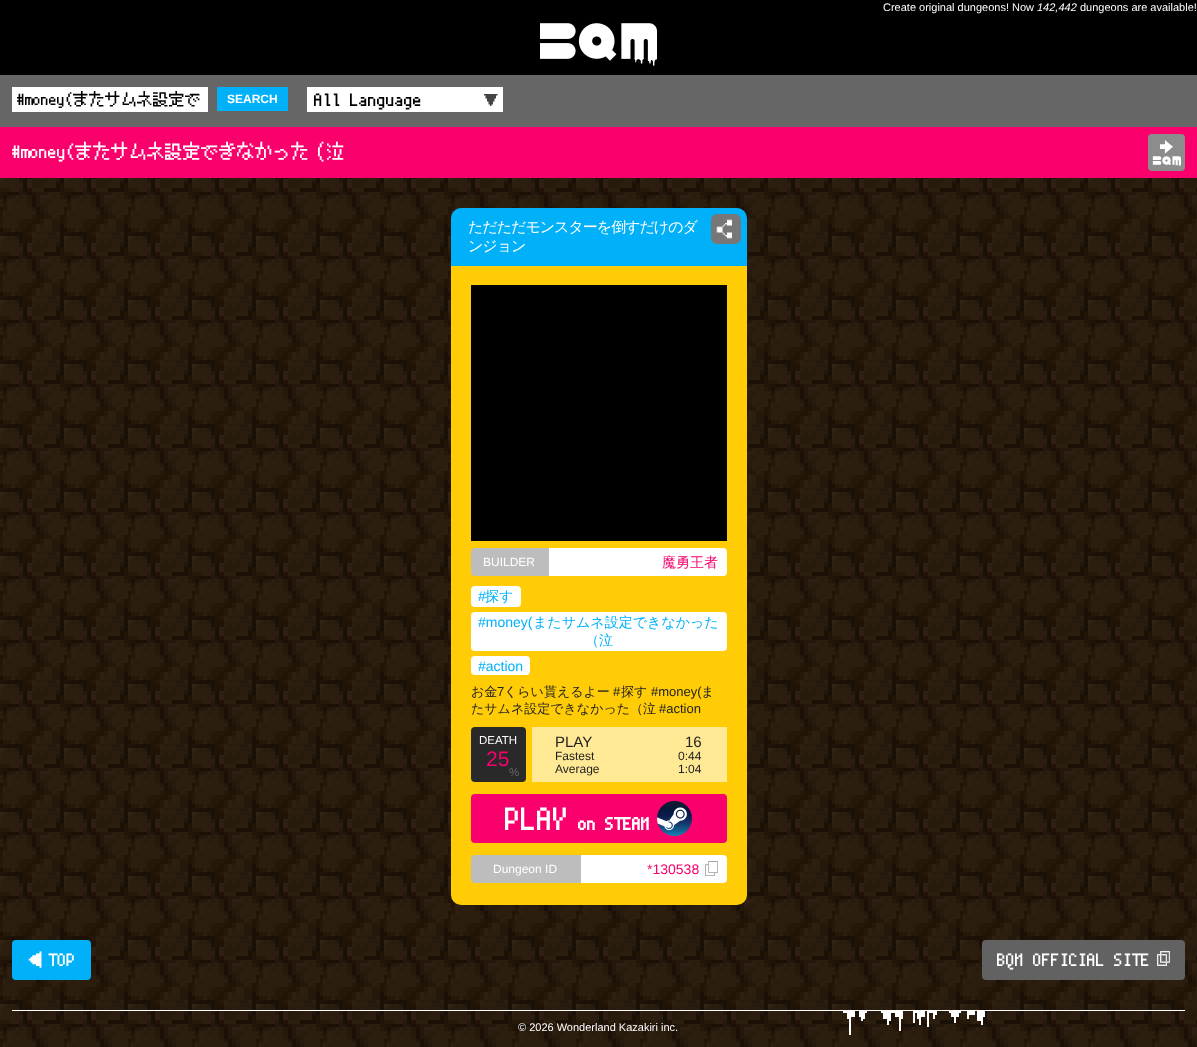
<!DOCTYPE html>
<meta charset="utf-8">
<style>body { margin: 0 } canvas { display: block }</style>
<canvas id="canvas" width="1197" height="1047"></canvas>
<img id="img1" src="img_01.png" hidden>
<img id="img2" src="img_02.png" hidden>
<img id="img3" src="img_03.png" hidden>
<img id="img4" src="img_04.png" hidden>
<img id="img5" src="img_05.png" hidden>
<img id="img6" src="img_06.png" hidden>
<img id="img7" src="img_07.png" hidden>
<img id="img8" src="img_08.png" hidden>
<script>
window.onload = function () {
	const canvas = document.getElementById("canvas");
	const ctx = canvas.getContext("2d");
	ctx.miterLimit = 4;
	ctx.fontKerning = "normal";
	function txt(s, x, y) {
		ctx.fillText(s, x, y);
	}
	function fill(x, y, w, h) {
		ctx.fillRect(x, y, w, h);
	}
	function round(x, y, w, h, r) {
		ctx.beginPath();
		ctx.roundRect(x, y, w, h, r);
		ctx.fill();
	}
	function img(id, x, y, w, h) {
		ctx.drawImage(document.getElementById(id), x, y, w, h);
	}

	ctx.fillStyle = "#FFFFFF";
	fill(0, 0, 1197, 1047);
	img("img1", 0, 178, 1197, 869);
	ctx.fillStyle = "#000000";
	fill(0, 0, 1197, 75);
	img("img2", 540, 23, 117, 43);
	ctx.fillStyle = "#666666";
	fill(0, 75, 1197, 52);
	ctx.fillStyle = "#FFFFFF";
	fill(12, 87, 196, 25);
	ctx.fillStyle = "#00B1F9";
	fill(217, 87, 71, 24);
	ctx.fillStyle = "#FFFFFF";
	fill(307, 87, 196, 25);
	ctx.fillStyle = "#F9006C";
	fill(0, 127, 1197, 51);
	ctx.fillStyle = "#8C8C8C";
	round(1148, 134, 37, 37, 4);
	img("img3", 1152, 140, 29, 27);
	ctx.fillStyle = "#00B1F9";
	ctx.beginPath();
	ctx.roundRect(451, 208, 296, 58, [10, 10, 0, 0]);
	ctx.fill();
	ctx.fillStyle = "#777777";
	round(711, 214, 30, 30, 6);
	img("img4", 716, 219, 16, 20);
	ctx.fillStyle = "#FFCC06";
	ctx.beginPath();
	ctx.roundRect(451, 266, 296, 639, [0, 0, 10, 10]);
	ctx.fill();
	ctx.fillStyle = "#000000";
	fill(471, 285, 256, 256);
	ctx.fillStyle = "#BDBDBD";
	ctx.beginPath();
	ctx.roundRect(471, 548, 78, 28, [4, 0, 0, 4]);
	ctx.fill();
	ctx.fillStyle = "#FFFFFF";
	ctx.beginPath();
	ctx.roundRect(549, 548, 178, 28, [0, 4, 4, 0]);
	ctx.fill();
	round(471, 586, 50, 21, 4);
	round(471, 612, 256, 39, 4);
	round(471, 656, 59, 19, 4);
	ctx.fillStyle = "#292929";
	round(471, 727, 55, 55, 4);
	ctx.fillStyle = "#FFE994";
	fill(532, 727, 195, 55);
	ctx.fillStyle = "#F9006C";
	round(471, 794, 256, 49, 4);
	img("img5", 657, 801, 35, 35);
	ctx.fillStyle = "#BDBDBD";
	ctx.beginPath();
	ctx.roundRect(471, 855, 110, 28, [4, 0, 0, 4]);
	ctx.fill();
	ctx.fillStyle = "#FFFFFF";
	ctx.beginPath();
	ctx.roundRect(581, 855, 146, 28, [0, 4, 4, 0]);
	ctx.fill();
	img("img6", 705, 861, 13, 15);
	ctx.fillStyle = "#00B1F9";
	round(12, 940, 79, 40, 4);
	ctx.fillStyle = "#626262";
	round(982, 940, 203, 40, 4);
	img("img7", 1157, 951, 13, 15);
	ctx.fillStyle = "#FFFFFF";
	fill(12, 1010, 1173, 1);
	img("img8", 843, 1011, 142, 24);
	ctx.font = "11px Liberation Sans";
	txt("Create original dungeons! Now", 883, 11);
	ctx.font = "italic 11px Liberation Sans";
	txt("142,442", 1037, 11);
	ctx.font = "11px Liberation Sans";
	txt("dungeons are available!", 1080, 11);
	ctx.save();
	ctx.beginPath();
	ctx.rect(17, 91, 186, 17);
	ctx.clip();
	ctx.font = "16px 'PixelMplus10'";
	ctx.fillStyle = "#000000";
	txt("#money(またサムネ設定で", 17, 105);
	ctx.restore();
	ctx.font = "bold 12px Liberation Sans";
	txt("SEARCH", 227, 103);
	ctx.save();
	ctx.beginPath();
	ctx.rect(314, 90, 182, 20);
	ctx.clip();
	ctx.font = "18px 'PixelMplus10'";
	ctx.fillStyle = "#000000";
	txt("All Language", 314, 106);
	ctx.restore();
	ctx.font = "15px 'PixelMplus10'";
	ctx.fillStyle = "#444444";
	txt("▼", 484, 106);
	ctx.font = "18px 'PixelMplus10'";
	ctx.fillStyle = "#FFFFFF";
	txt("#money(またサムネ設定できなかった（泣", 12, 158);
	ctx.letterSpacing = "-1px";
	ctx.font = "500 15px WenQuanYi Zen Hei";
	txt("ただただモンスターを倒すだけのダ", 468, 232);
	txt("ンジョン", 468, 251);
	ctx.letterSpacing = "0px";
	ctx.font = "12px Liberation Sans";
	txt("BUILDER", 483, 566);
	ctx.font = "500 14px WenQuanYi Zen Hei";
	ctx.fillStyle = "#F9006C";
	txt("魔勇王者", 662, 567);
	ctx.font = "14px Liberation Sans";
	ctx.fillStyle = "#00B1F9";
	txt("#", 478, 601);
	ctx.font = "500 14px WenQuanYi Zen Hei";
	txt("探す", 485, 601);
	ctx.font = "14px Liberation Sans";
	txt("#money(", 478, 627);
	ctx.font = "500 14px WenQuanYi Zen Hei";
	txt("またサムネ設定できなかった", 533, 627);
	txt("（泣", 585, 645);
	ctx.font = "14px Liberation Sans";
	txt("#action", 478, 671);
	ctx.font = "500 13px WenQuanYi Zen Hei";
	ctx.fillStyle = "#222222";
	txt("お金", 471, 696);
	ctx.font = "13px Liberation Sans";
	txt("7", 497, 696);
	ctx.font = "500 13px WenQuanYi Zen Hei";
	txt("くらい貰えるよー", 504, 696);
	ctx.font = "13px Liberation Sans";
	txt("#", 613, 696);
	ctx.font = "500 13px WenQuanYi Zen Hei";
	txt("探す", 621, 696);
	ctx.font = "13px Liberation Sans";
	txt("#money(", 651, 696);
	ctx.font = "500 13px WenQuanYi Zen Hei";
	txt("ま", 701, 696);
	txt("たサムネ設定できなかった（泣", 471, 713);
	ctx.font = "13px Liberation Sans";
	txt("#action", 659, 713);
	ctx.font = "11.5px Liberation Sans";
	ctx.fillStyle = "#FFFFFF";
	txt("DEATH", 479, 744);
	ctx.font = "21px Liberation Sans";
	ctx.fillStyle = "#F9006C";
	txt("25", 486, 766);
	ctx.font = "11.5px Liberation Sans";
	ctx.fillStyle = "#696969";
	txt("%", 509, 776);
	ctx.font = "15px Liberation Sans";
	ctx.fillStyle = "#222222";
	txt("PLAY", 555, 747);
	txt("16", 685, 747);
	ctx.font = "12px Liberation Sans";
	txt("Fastest", 555, 760);
	txt("0:44", 678, 760);
	txt("Average", 555, 773);
	txt("1:04", 678, 773);
	ctx.font = "32px 'PixelMplus10'";
	ctx.fillStyle = "#FFFFFF";
	txt("PLAY", 505, 830);
	ctx.font = "bold 18px 'PixelMplus10'";
	txt("on STEAM", 578, 830);
	ctx.font = "12px Liberation Sans";
	txt("Dungeon ID", 493, 873);
	ctx.font = "14px Liberation Sans";
	ctx.fillStyle = "#F9006C";
	txt("*130538", 647, 874);
	ctx.font = "18px 'PixelMplus10'";
	ctx.fillStyle = "#FFFFFF";
	txt("◀ TOP", 27, 966);
	txt("BQM OFFICIAL SITE", 997, 966);
	ctx.font = "11px Liberation Sans";
	txt("© 2026 Wonderland Kazakiri inc.", 518, 1031);
};
</script>
